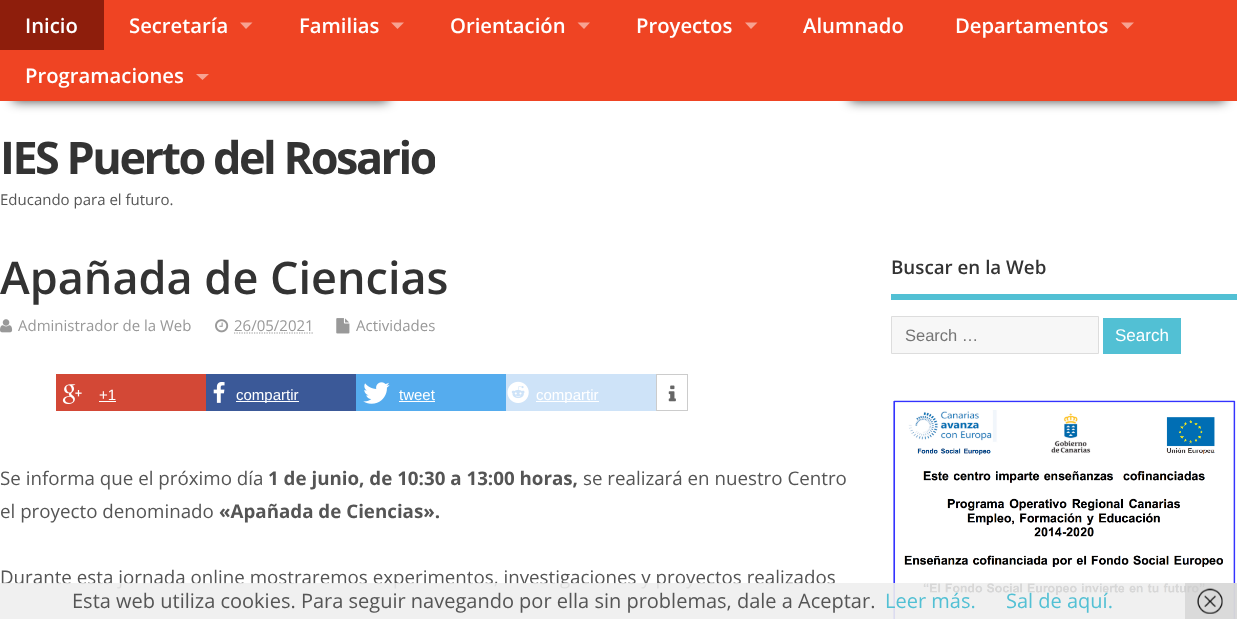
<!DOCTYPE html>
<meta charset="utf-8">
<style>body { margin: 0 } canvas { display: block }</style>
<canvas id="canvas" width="1237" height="619"></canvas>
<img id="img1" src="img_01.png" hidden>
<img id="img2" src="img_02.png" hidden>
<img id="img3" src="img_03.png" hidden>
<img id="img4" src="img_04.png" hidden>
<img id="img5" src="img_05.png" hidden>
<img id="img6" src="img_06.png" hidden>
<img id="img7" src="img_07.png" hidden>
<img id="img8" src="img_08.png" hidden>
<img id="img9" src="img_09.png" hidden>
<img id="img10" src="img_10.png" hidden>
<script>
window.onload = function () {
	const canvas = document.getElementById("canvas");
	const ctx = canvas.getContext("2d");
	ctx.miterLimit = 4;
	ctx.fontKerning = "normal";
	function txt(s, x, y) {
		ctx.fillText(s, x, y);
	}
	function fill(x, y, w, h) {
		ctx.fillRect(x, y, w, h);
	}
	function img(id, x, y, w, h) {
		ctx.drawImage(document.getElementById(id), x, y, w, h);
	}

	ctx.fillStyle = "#FFFFFF";
	fill(0, 0, 1237, 619);
	ctx.fillStyle = "rgba(0, 0, 0, 0.75)";
	ctx.filter = "blur(6px)";
	ctx.beginPath();
	ctx.rect(13, 81, 375, 20);
	ctx.fill();
	ctx.filter = "none";
	ctx.filter = "blur(6px)";
	ctx.beginPath();
	ctx.rect(850, 81, 375, 20);
	ctx.fill();
	ctx.filter = "none";
	ctx.fillStyle = "#EF4423";
	fill(0, 0, 1237, 101);
	ctx.fillStyle = "#8E1E0C";
	fill(0, 0, 104, 50);
	ctx.fillStyle = "#F7A291";
	ctx.beginPath();
	ctx.moveTo(240, 22.5);
	ctx.lineTo(252.5, 22.5);
	ctx.lineTo(246, 29);
	ctx.closePath();
	ctx.fill();
	ctx.beginPath();
	ctx.moveTo(391, 22.5);
	ctx.lineTo(404, 22.5);
	ctx.lineTo(397.5, 29);
	ctx.closePath();
	ctx.fill();
	ctx.beginPath();
	ctx.moveTo(577.5, 22.5);
	ctx.lineTo(590, 22.5);
	ctx.lineTo(584, 29);
	ctx.closePath();
	ctx.fill();
	ctx.beginPath();
	ctx.moveTo(745, 22.5);
	ctx.lineTo(757.5, 22.5);
	ctx.lineTo(751, 29);
	ctx.closePath();
	ctx.fill();
	ctx.beginPath();
	ctx.moveTo(1121, 22.5);
	ctx.lineTo(1134, 22.5);
	ctx.lineTo(1127.5, 29);
	ctx.closePath();
	ctx.fill();
	ctx.beginPath();
	ctx.moveTo(196, 74);
	ctx.lineTo(209, 74);
	ctx.lineTo(202.5, 80);
	ctx.closePath();
	ctx.fill();
	img("img1", 0, 319, 13, 14);
	img("img2", 215, 319, 14, 14);
	ctx.beginPath();
	ctx.moveTo(234, 333);
	ctx.lineTo(313.5, 333);
	ctx.strokeStyle = "#999999";
	ctx.lineWidth = 1.2;
	ctx.setLineDash([1.25, 1.25]);
	ctx.stroke();
	img("img3", 336, 318, 14, 16);
	ctx.fillStyle = "#D34836";
	fill(56, 374, 150, 37);
	img("img4", 62, 384, 20, 20);
	ctx.fillStyle = "#FFFFFF";
	fill(99, 401, 17, 1);
	ctx.fillStyle = "#3B5998";
	fill(206, 374, 150, 37);
	img("img5", 213, 382, 12, 21);
	ctx.fillStyle = "#FFFFFF";
	fill(236, 401, 63, 1);
	ctx.fillStyle = "#55ACEE";
	fill(356, 374, 150, 37);
	img("img6", 363, 382, 27, 22);
	ctx.fillStyle = "#FFFFFF";
	fill(399, 401, 36, 1);
	ctx.fillStyle = "#CEE3F8";
	fill(506, 374, 150, 37);
	img("img7", 507, 381, 22, 22);
	ctx.fillStyle = "#FFFFFF";
	fill(536, 401, 63, 1);
	ctx.strokeStyle = "#CCCCCC";
	ctx.lineWidth = 1;
	ctx.setLineDash([]);
	ctx.strokeRect(656.5, 374.5, 31, 36);
	img("img8", 668, 385, 8, 17);
	ctx.fillStyle = "#52C0D4";
	fill(891, 294, 346, 6);
	ctx.fillStyle = "#F7F7F7";
	ctx.beginPath();
	ctx.rect(891.5, 316.5, 207, 37);
	ctx.fill();
	ctx.strokeStyle = "#DDDDDD";
	ctx.stroke();
	ctx.fillStyle = "#52C0D4";
	fill(1103, 318, 78, 36);
	img("img9", 893, 400, 343, 219);
	ctx.font = "600 20.25px Open Sans";
	ctx.fillStyle = "#FFFFFF";
	txt("Inicio", 25, 33);
	txt("Secretaría", 129, 33);
	txt("Familias", 299, 33);
	txt("Orientación", 450, 33);
	txt("Proyectos", 636, 33);
	txt("Alumnado", 803, 33);
	txt("Departamentos", 955, 33);
	txt("Programaciones", 25, 83);
	ctx.save();
	ctx.beginPath();
	ctx.rect(0, 101, 435, 109);
	ctx.clip();
	ctx.letterSpacing = "-2.5px";
	ctx.font = "bold 45px Open Sans";
	ctx.fillStyle = "#333333";
	txt("IES Puerto del Rosario", 0, 174);
	ctx.restore();
	ctx.font = "15px Open Sans";
	ctx.fillStyle = "#555555";
	txt("Educando para el futuro.", 0, 205);
	ctx.font = "600 45px Open Sans";
	ctx.fillStyle = "#333333";
	txt("Apañada de Ciencias", 0, 294);
	ctx.font = "15px Open Sans";
	ctx.fillStyle = "#999999";
	txt("Administrador de la Web", 18, 331);
	txt("26/05/2021", 234, 331);
	txt("Actividades", 356, 331);
	ctx.font = "15px Liberation Sans";
	ctx.fillStyle = "#FFFFFF";
	txt("+1", 99, 400);
	txt("compartir", 236, 400);
	txt("tweet", 399, 400);
	txt("compartir", 536, 400);
	ctx.font = "18.75px Open Sans";
	ctx.fillStyle = "#555555";
	txt("Se informa que el próximo día", 0, 485);
	ctx.font = "bold 18.75px Open Sans";
	txt("1 de junio, de 10:30 a 13:00 horas,", 268, 485);
	ctx.font = "18.75px Open Sans";
	txt("se realizará en nuestro Centro", 583, 485);
	txt("el proyecto denominado", 0, 518);
	ctx.font = "bold 18.75px Open Sans";
	txt("«Apañada de Ciencias».", 219, 518);
	ctx.font = "18.75px Open Sans";
	txt("Durante esta jornada online mostraremos experimentos, investigaciones y proyectos realizados", 0, 584);
	ctx.font = "600 18.75px Open Sans";
	ctx.fillStyle = "#333333";
	txt("Buscar en la Web", 891, 274);
	ctx.font = "16.5px Liberation Sans";
	ctx.fillStyle = "#757575";
	txt("Search …", 905, 341);
	ctx.font = "17px Liberation Sans";
	ctx.fillStyle = "#FFFFFF";
	txt("Search", 1115, 341);
	ctx.fillStyle = "rgba(238, 238, 238, 0.9)";
	fill(0, 583, 1237, 36);
	ctx.font = "20px Open Sans";
	ctx.fillStyle = "#555555";
	txt("Esta web utiliza cookies. Para seguir navegando por ella sin problemas, dale a Aceptar.", 72, 608);
	ctx.fillStyle = "#52C0D4";
	txt("Leer más.", 885, 608);
	txt("Sal de aquí.", 1006, 608);
	ctx.fillStyle = "rgba(204, 204, 204, 0.6)";
	fill(1185, 583, 52, 36);
	img("img10", 1197, 588, 26, 26);
};
</script>
